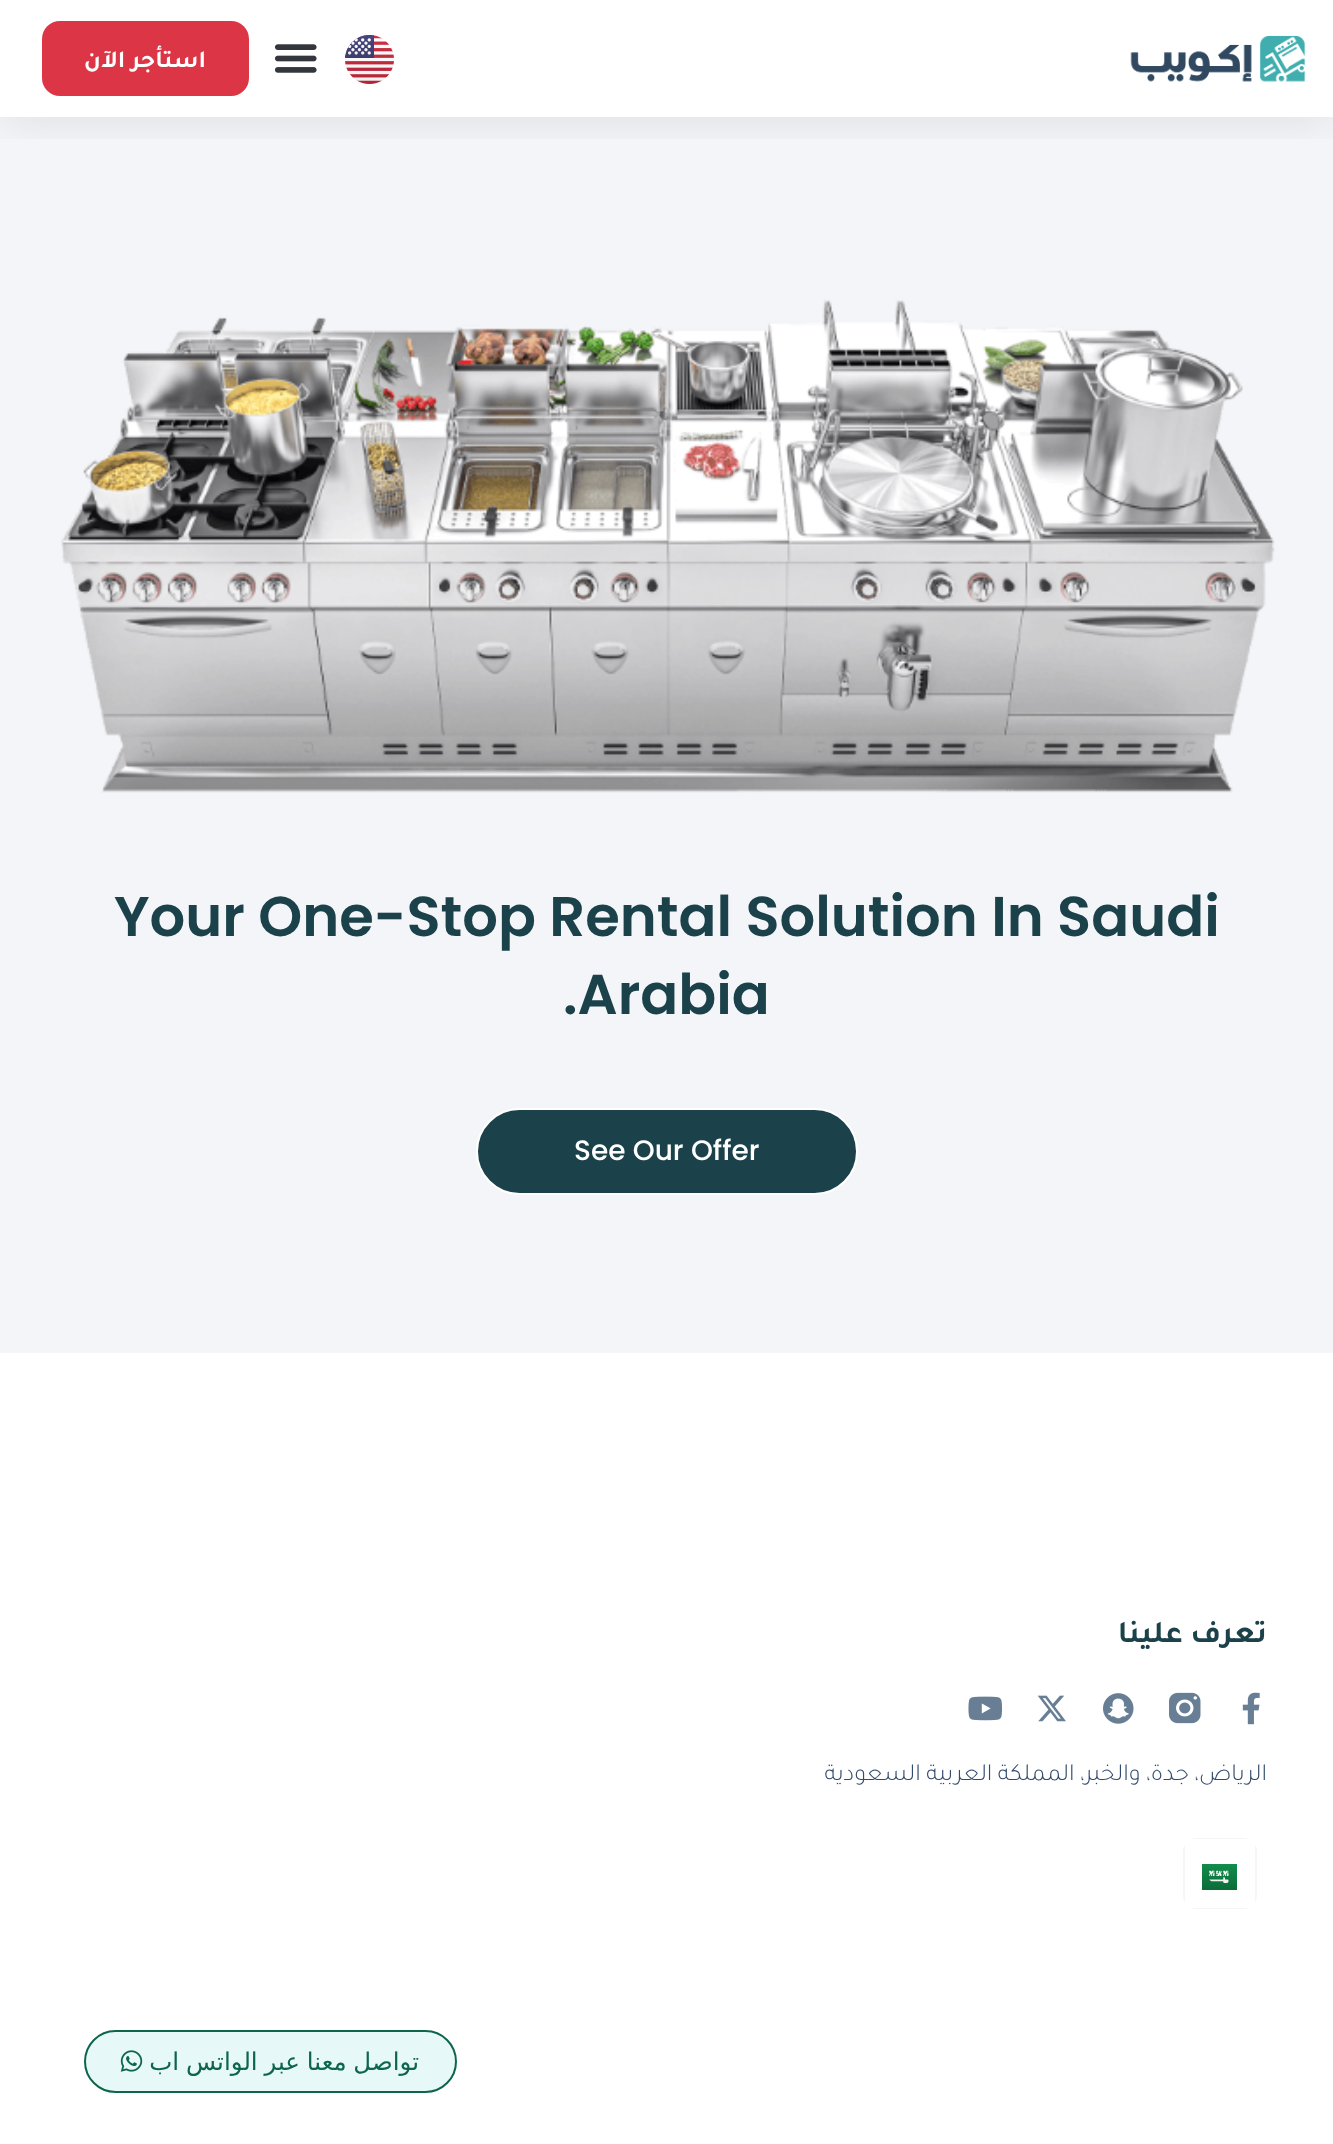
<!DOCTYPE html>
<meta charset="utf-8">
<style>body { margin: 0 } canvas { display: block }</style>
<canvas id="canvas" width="1333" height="2144"></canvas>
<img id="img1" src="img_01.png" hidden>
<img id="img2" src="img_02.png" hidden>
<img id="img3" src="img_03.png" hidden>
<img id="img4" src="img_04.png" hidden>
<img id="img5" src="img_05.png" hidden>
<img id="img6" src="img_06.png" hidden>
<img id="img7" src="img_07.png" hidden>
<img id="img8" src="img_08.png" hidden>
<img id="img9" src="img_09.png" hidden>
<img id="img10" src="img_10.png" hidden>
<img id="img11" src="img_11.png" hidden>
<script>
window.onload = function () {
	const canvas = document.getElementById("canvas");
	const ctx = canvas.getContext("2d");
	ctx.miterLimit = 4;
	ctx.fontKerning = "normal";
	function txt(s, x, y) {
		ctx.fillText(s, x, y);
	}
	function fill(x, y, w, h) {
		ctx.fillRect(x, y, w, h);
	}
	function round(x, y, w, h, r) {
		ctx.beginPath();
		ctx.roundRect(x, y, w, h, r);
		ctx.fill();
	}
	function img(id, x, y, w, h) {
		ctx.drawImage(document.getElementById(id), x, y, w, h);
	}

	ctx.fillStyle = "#FFFFFF";
	fill(0, 0, 1333, 2144);
	ctx.fillStyle = "#F3F5F8";
	fill(0, 117, 1333, 1236);
	ctx.save();
	ctx.beginPath();
	ctx.rect(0, 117, 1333, 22);
	ctx.clip();
	ctx.fillStyle = "rgba(0, 0, 0, 0.1)";
	ctx.filter = "blur(26px)";
	ctx.beginPath();
	ctx.rect(0, 0, 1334, 117);
	ctx.fill();
	ctx.filter = "none";
	ctx.restore();
	img("img1", 1130, 35, 176, 47);
	img("img2", 345, 35, 49, 49);
	img("img3", 274, 44, 43, 29);
	ctx.fillStyle = "#DC3545";
	round(42, 21, 207, 75, 18);
	img("img4", 61, 299, 1214, 494);
	ctx.fillStyle = "#1B424A";
	ctx.beginPath();
	ctx.roundRect(477, 1109, 380, 85, 42.5);
	ctx.fill();
	ctx.strokeStyle = "#FFFFFF";
	ctx.lineWidth = 2;
	ctx.stroke();
	img("img5", 1242, 1692, 18, 33);
	img("img6", 1169, 1692, 32, 32);
	img("img7", 1103, 1693, 31, 31);
	img("img8", 1037, 1695, 29, 27);
	img("img9", 968, 1696, 35, 25);
	ctx.beginPath();
	ctx.roundRect(1184, 1839, 72, 69, 13);
	ctx.strokeStyle = "#F5F5F5";
	ctx.stroke();
	ctx.fillStyle = "#FFFFFF";
	fill(1185, 1839, 70, 69);
	img("img10", 1202, 1864, 35, 26);
	ctx.fillStyle = "#E7F8F8";
	ctx.beginPath();
	ctx.roundRect(85, 2031, 371, 61, 30.5);
	ctx.fill();
	ctx.strokeStyle = "#0D664B";
	ctx.stroke();
	img("img11", 120, 2050, 23, 22);
	ctx.direction = "rtl";
	ctx.font = "bold 24.5px Tajawal";
	ctx.fillStyle = "#FFFFFF";
	txt("استأجر الآن", 206, 67);
	ctx.direction = "ltr";
	ctx.font = "600 56px Poppins";
	ctx.fillStyle = "#1B424A";
	txt("Your One-Stop Rental Solution In Saudi", 114, 936);
	txt(".Arabia", 563, 1014);
	ctx.font = "500 28px Poppins";
	ctx.fillStyle = "#FFFFFF";
	txt("See Our Offer", 574, 1160);
	ctx.direction = "rtl";
	ctx.font = "bold 31.5px Tajawal";
	ctx.fillStyle = "#1B424A";
	txt("تعرف علينا", 1267, 1642);
	ctx.font = "300 24.5px Tajawal";
	ctx.fillStyle = "#324A6D";
	txt("الرياض، جدة، والخبر، المملكة العربية السعودية", 1267, 1780);
	ctx.wordSpacing = "-1px";
	ctx.font = "24.5px DejaVu Sans";
	ctx.fillStyle = "#0D664B";
	txt("تواصل معنا عبر الواتس اب", 419, 2070);
};
</script>
